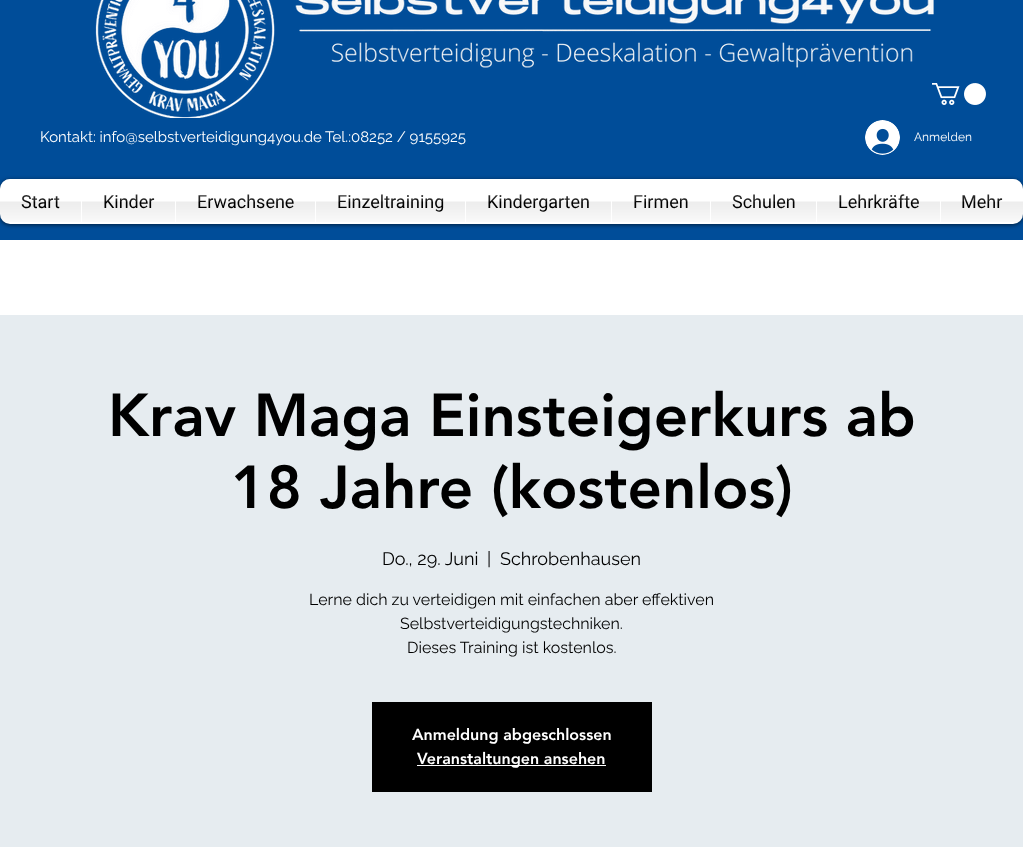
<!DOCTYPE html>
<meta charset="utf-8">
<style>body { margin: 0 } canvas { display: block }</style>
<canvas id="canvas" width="1023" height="847"></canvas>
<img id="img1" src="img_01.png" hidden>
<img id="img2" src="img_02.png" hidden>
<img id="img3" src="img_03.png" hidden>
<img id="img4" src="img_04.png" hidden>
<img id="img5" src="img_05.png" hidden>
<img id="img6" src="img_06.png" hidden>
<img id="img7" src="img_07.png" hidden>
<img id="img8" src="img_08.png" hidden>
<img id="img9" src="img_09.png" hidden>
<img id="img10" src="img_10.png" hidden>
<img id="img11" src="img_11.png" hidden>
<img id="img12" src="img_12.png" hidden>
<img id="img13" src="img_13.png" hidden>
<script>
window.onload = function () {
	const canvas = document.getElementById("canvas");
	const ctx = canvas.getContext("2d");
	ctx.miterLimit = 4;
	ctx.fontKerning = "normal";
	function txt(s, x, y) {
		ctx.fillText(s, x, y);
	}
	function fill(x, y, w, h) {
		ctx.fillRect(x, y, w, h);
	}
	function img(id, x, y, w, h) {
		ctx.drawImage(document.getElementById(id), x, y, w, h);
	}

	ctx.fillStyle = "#FFFFFF";
	fill(0, 0, 1023, 847);
	ctx.fillStyle = "#004D99";
	fill(0, 0, 1023, 240);
	img("img1", 95, 0, 839, 118);
	img("img2", 932, 83, 54, 22);
	img("img3", 865, 120, 35, 35);
	ctx.fillStyle = "rgba(0, 0, 0, 0.6)";
	ctx.filter = "blur(2px)";
	ctx.beginPath();
	ctx.roundRect(0, 180, 1023, 45, 10);
	ctx.fill();
	ctx.filter = "none";
	img("img4", 0, 179, 1023, 40);
	ctx.fillStyle = "#FFFFFF";
	ctx.beginPath();
	ctx.roundRect(0, 179, 81, 45, [10, 0, 0, 10]);
	ctx.fill();
	fill(81, 179, 859, 45);
	ctx.beginPath();
	ctx.roundRect(940, 179, 83, 45, [0, 10, 10, 0]);
	ctx.fill();
	ctx.fillStyle = "#E6ECF0";
	fill(0, 315, 1023, 532);
	ctx.fillStyle = "#000000";
	fill(372, 702, 280, 90);
	ctx.fillStyle = "#FFFFFF";
	fill(417, 765, 189, 1);
	ctx.font = "15px Raleway";
	txt("Kontakt: info@selbstverteidigung4you.de", 40, 142);
	txt("Tel.:08252 / 9155925", 325, 142);
	ctx.font = "12px Raleway";
	txt("Anmelden", 914, 141);
	ctx.font = "18px Roboto";
	ctx.fillStyle = "#000000";
	txt("Start", 21, 208);
	img("img5", 0, 179, 81, 43);
	txt("Kinder", 103, 208);
	img("img6", 82, 194, 93, 28);
	txt("Erwachsene", 197, 208);
	img("img7", 176, 194, 139, 28);
	txt("Einzeltraining", 337, 208);
	img("img8", 316, 194, 149, 28);
	txt("Kindergarten", 487, 208);
	img("img9", 466, 194, 145, 28);
	txt("Firmen", 633, 208);
	img("img10", 612, 195, 98, 27);
	txt("Schulen", 732, 208);
	img("img11", 711, 194, 105, 28);
	txt("Lehrkräfte", 838, 208);
	img("img12", 817, 194, 123, 28);
	txt("Mehr", 961, 208);
	img("img13", 941, 179, 82, 43);
	ctx.font = "900 60px 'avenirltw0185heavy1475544'";
	txt("Krav Maga Einsteigerkurs ab", 108, 436);
	txt("18 Jahre (kostenlos)", 231, 508);
	ctx.font = "18px Raleway";
	txt("Do., 29. Juni", 382, 565);
	txt("|", 487, 565);
	txt("Schrobenhausen", 500, 565);
	ctx.font = "16px Raleway";
	txt("Lerne dich zu verteidigen mit einfachen aber effektiven", 309, 605);
	txt("Selbstverteidigungstechniken.", 400, 629);
	txt("Dieses Training ist kostenlos.", 407, 653);
	ctx.font = "900 16px 'avenirltw0185heavy1475544'";
	ctx.fillStyle = "#FFFFFF";
	txt("Anmeldung abgeschlossen", 412, 740);
	txt("Veranstaltungen ansehen", 417, 764);
};
</script>
